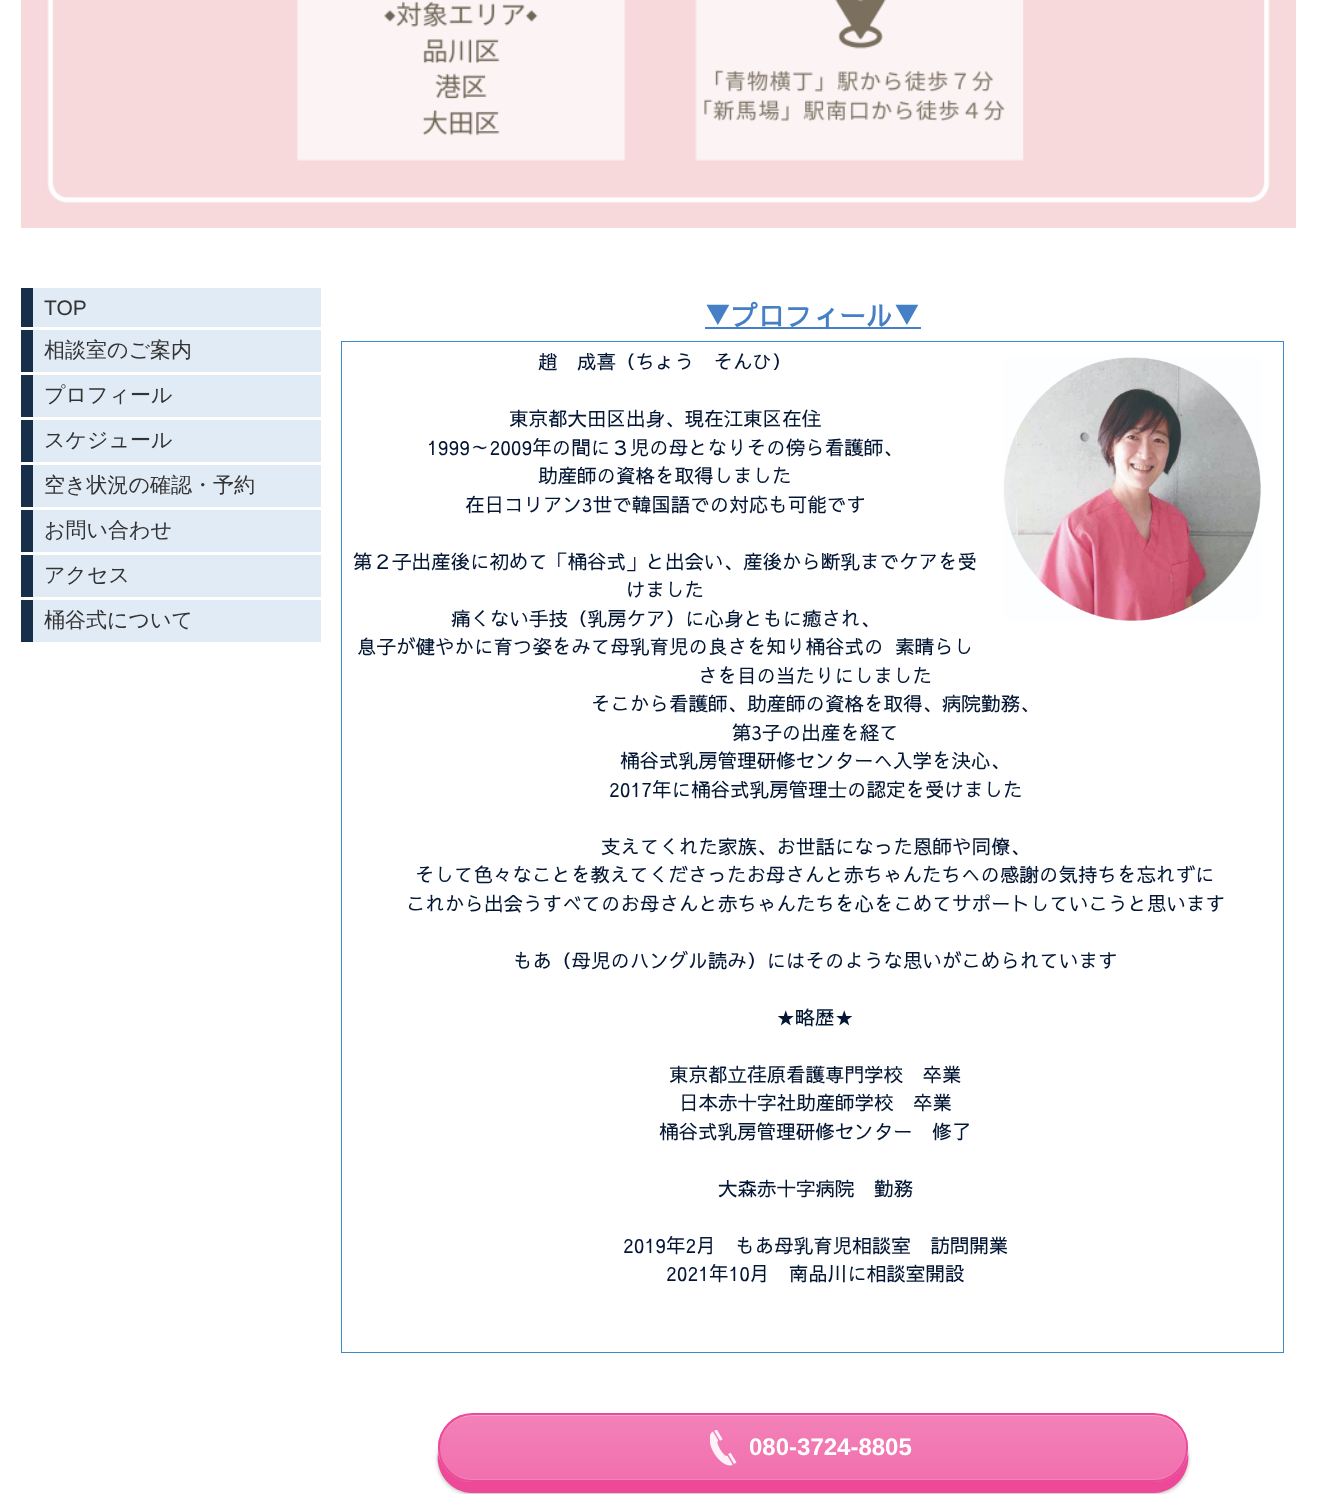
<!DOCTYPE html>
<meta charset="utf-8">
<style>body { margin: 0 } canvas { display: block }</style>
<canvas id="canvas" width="1317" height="1494"></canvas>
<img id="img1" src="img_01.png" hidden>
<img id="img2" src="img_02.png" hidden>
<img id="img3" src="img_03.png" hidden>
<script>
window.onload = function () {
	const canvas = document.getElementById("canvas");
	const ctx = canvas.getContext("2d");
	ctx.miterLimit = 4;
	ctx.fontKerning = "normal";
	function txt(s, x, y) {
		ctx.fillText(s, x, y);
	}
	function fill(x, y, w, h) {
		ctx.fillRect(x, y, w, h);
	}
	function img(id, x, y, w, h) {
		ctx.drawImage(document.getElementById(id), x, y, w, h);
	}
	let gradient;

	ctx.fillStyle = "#FFFFFF";
	fill(0, 0, 1317, 1494);
	img("img1", 21, 0, 1275, 228);
	ctx.fillStyle = "#E1EBF6";
	fill(33, 288, 288, 39);
	ctx.fillStyle = "#172F4B";
	fill(21, 288, 12, 39);
	ctx.fillStyle = "#E1EBF6";
	fill(33, 330, 288, 42);
	ctx.fillStyle = "#172F4B";
	fill(21, 330, 12, 42);
	ctx.fillStyle = "#E1EBF6";
	fill(33, 375, 288, 42);
	ctx.fillStyle = "#172F4B";
	fill(21, 375, 12, 42);
	ctx.fillStyle = "#E1EBF6";
	fill(33, 420, 288, 42);
	ctx.fillStyle = "#172F4B";
	fill(21, 420, 12, 42);
	ctx.fillStyle = "#E1EBF6";
	fill(33, 465, 288, 42);
	ctx.fillStyle = "#172F4B";
	fill(21, 465, 12, 42);
	ctx.fillStyle = "#E1EBF6";
	fill(33, 510, 288, 42);
	ctx.fillStyle = "#172F4B";
	fill(21, 510, 12, 42);
	ctx.fillStyle = "#E1EBF6";
	fill(33, 555, 288, 42);
	ctx.fillStyle = "#172F4B";
	fill(21, 555, 12, 42);
	ctx.fillStyle = "#E1EBF6";
	fill(33, 600, 288, 42);
	ctx.fillStyle = "#172F4B";
	fill(21, 600, 12, 42);
	ctx.fillStyle = "#4580C6";
	fill(705, 327, 216, 2);
	ctx.strokeStyle = "#3A89C9";
	ctx.lineWidth = 2;
	ctx.strokeRect(342, 342, 941, 1010);
	ctx.fillStyle = "#FFFFFF";
	fill(342, 342, 941, 1010);
	img("img2", 1003, 357, 258, 264);
	ctx.fillStyle = "rgba(0, 0, 0, 0.3)";
	ctx.filter = "blur(2px)";
	ctx.beginPath();
	ctx.roundRect(438, 1425, 750, 69, 34.5);
	ctx.fill();
	ctx.filter = "none";
	ctx.fillStyle = "#EE4999";
	ctx.beginPath();
	ctx.moveTo(438, 1453);
	ctx.bezierCurveTo(435, 1474, 452, 1493, 472, 1493);
	ctx.lineTo(1154, 1493);
	ctx.bezierCurveTo(1174, 1493, 1191, 1474, 1188, 1453);
	ctx.bezierCurveTo(1185, 1469, 1171, 1482, 1154, 1482);
	ctx.lineTo(472, 1482);
	ctx.bezierCurveTo(455, 1482, 441, 1469, 438, 1453);
	ctx.closePath();
	ctx.fill();
	ctx.save();
	ctx.beginPath();
	ctx.roundRect(438, 1413, 750, 69, 34.5);
	ctx.clip();
	gradient = ctx.createLinearGradient(813, 1415, 813, 1481);
	gradient.addColorStop(0, "#F381B8");
	gradient.addColorStop(1, "#F16FAE");
	ctx.fillStyle = gradient;
	fill(438, 1415, 750, 66);
	ctx.restore();
	ctx.fillStyle = "rgba(255, 255, 255, 0.15)";
	ctx.beginPath();
	ctx.moveTo(440, 1447);
	ctx.lineTo(440, 1448);
	ctx.bezierCurveTo(440, 1466, 455, 1481, 473, 1481);
	ctx.lineTo(1154, 1481);
	ctx.bezierCurveTo(1172, 1481, 1187, 1466, 1187, 1448);
	ctx.bezierCurveTo(1187, 1443, 1186, 1438, 1184, 1433);
	ctx.bezierCurveTo(1185, 1437, 1186, 1442, 1186, 1446);
	ctx.bezierCurveTo(1186, 1464, 1172, 1479, 1154, 1479);
	ctx.lineTo(472, 1479);
	ctx.bezierCurveTo(454, 1479, 441, 1465, 440, 1447);
	ctx.closePath();
	ctx.fill();
	ctx.fillStyle = "rgba(255, 255, 255, 0.3)";
	ctx.beginPath();
	ctx.moveTo(472, 1416);
	ctx.lineTo(1154, 1416);
	ctx.bezierCurveTo(1172, 1416, 1186, 1431, 1186, 1449);
	ctx.bezierCurveTo(1186, 1456, 1184, 1463, 1180, 1469);
	ctx.bezierCurveTo(1184, 1463, 1187, 1456, 1187, 1448);
	ctx.bezierCurveTo(1187, 1430, 1172, 1415, 1154, 1415);
	ctx.lineTo(473, 1415);
	ctx.bezierCurveTo(455, 1415, 440, 1430, 440, 1448);
	ctx.bezierCurveTo(440, 1431, 454, 1416, 472, 1416);
	ctx.closePath();
	ctx.fill();
	ctx.beginPath();
	ctx.roundRect(439, 1414, 748, 67, 33.5);
	ctx.strokeStyle = "#EE4999";
	ctx.stroke();
	img("img3", 710, 1430, 27, 36);
	ctx.font = "21px Liberation Sans";
	ctx.fillStyle = "#333333";
	txt("TOP", 44, 315);
	ctx.font = "500 21px WenQuanYi Zen Hei";
	txt("相談室のご案内", 44, 357);
	txt("プロフィール", 44, 402);
	txt("スケジュール", 44, 447);
	txt("空き状況の確認・予約", 44, 492);
	txt("お問い合わせ", 44, 537);
	txt("アクセス", 44, 582);
	txt("桶谷式について", 44, 627);
	ctx.font = "bold 27px Sawarabi Gothic";
	ctx.fillStyle = "#4580C6";
	txt("▼プロフィール▼", 704, 326);
	ctx.font = "19.5px Sawarabi Gothic";
	ctx.fillStyle = "#031634";
	txt("趙　成喜（ちょう　そんひ）", 538, 369);
	txt("東京都大田区出身、現在江東区在住", 509, 426);
	txt("1999～2009年の間に３児の母となりその傍ら看護師、", 427, 455);
	txt("助産師の資格を取得しました", 538, 483);
	txt("在日コリアン3世で韓国語での対応も可能です", 465, 512);
	txt("第２子出産後に初めて「桶谷式」と出会い、産後から断乳までケアを受", 353, 569);
	txt("けました", 626, 597);
	txt("痛くない手技（乳房ケア）に心身ともに癒され、", 451, 626);
	txt("息子が健やかに育つ姿をみて母乳育児の良さを知り桶谷式の  素晴らし", 357, 654);
	txt("さを目の当たりにしました", 698, 683);
	txt("そこから看護師、助産師の資格を取得、病院勤務、", 591, 711);
	txt("第3子の出産を経て", 732, 740);
	txt("桶谷式乳房管理研修センターへ入学を決心、", 620, 768);
	txt("2017年に桶谷式乳房管理士の認定を受けました", 609, 797);
	txt("支えてくれた家族、お世話になった恩師や同僚、", 601, 854);
	txt("そして色々なことを教えてくださったお母さんと赤ちゃんたちへの感謝の気持ちを忘れずに", 415, 882);
	txt("これから出会うすべてのお母さんと赤ちゃんたちを心をこめてサポートしていこうと思います", 406, 911);
	txt("もあ（母児のハングル読み）にはそのような思いがこめられています", 513, 968);
	txt("★略歴★", 776, 1025);
	txt("東京都立荏原看護専門学校　卒業", 669, 1082);
	txt("日本赤十字社助産師学校　卒業", 679, 1110);
	txt("桶谷式乳房管理研修センター　修了", 659, 1139);
	txt("大森赤十字病院　勤務", 718, 1196);
	txt("2019年2月　もあ母乳育児相談室　訪問開業", 623, 1253);
	txt("2021年10月　南品川に相談室開設", 666, 1281);
	ctx.font = "bold 24px Liberation Sans";
	ctx.fillStyle = "#FFFFFF";
	txt("080-3724-8805", 749, 1455);
};
</script>
